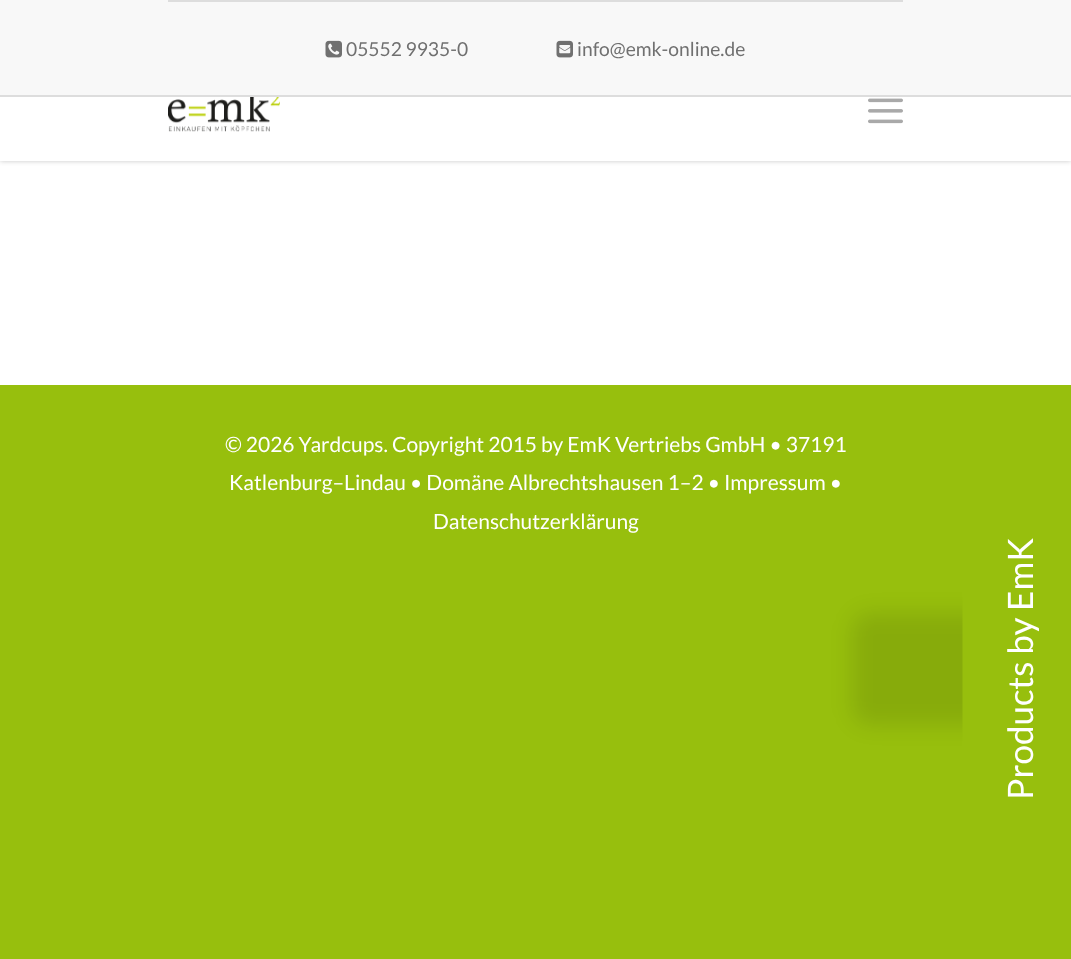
<!DOCTYPE html>
<meta charset="utf-8">
<style>body { margin: 0 } canvas { display: block }</style>
<canvas id="canvas" width="1071" height="959"></canvas>
<img id="img1" src="img_01.png" hidden>
<img id="img2" src="img_02.png" hidden>
<img id="img3" src="img_03.png" hidden>
<img id="img4" src="img_04.png" hidden>
<script>
window.onload = function () {
	const canvas = document.getElementById("canvas");
	const ctx = canvas.getContext("2d");
	ctx.miterLimit = 4;
	ctx.fontKerning = "normal";
	function txt(s, x, y) {
		ctx.fillText(s, x, y);
	}
	function fill(x, y, w, h) {
		ctx.fillRect(x, y, w, h);
	}
	function img(id, x, y, w, h) {
		ctx.drawImage(document.getElementById(id), x, y, w, h);
	}

	ctx.fillStyle = "#97BF0D";
	fill(0, 0, 1071, 959);
	ctx.fillStyle = "#FFFFFF";
	fill(0, 161, 1071, 224);
	ctx.fillStyle = "rgba(0, 0, 0, 0.22)";
	ctx.filter = "blur(2.5px)";
	ctx.beginPath();
	ctx.rect(0, 60, 1071, 101);
	ctx.fill();
	ctx.filter = "none";
	ctx.fillStyle = "#F8F8F8";
	fill(0, 0, 1071, 95);
	ctx.fillStyle = "#DDDDDD";
	fill(0, 95, 1071, 2);
	fill(168, 0, 735, 2);
	img("img1", 325, 40, 17, 18);
	img("img2", 556, 40, 17, 18);
	ctx.fillStyle = "#FFFFFF";
	fill(0, 97, 1071, 64);
	img("img3", 168, 97, 112, 35);
	img("img4", 868, 98, 35, 26);
	ctx.save();
	ctx.beginPath();
	ctx.moveTo(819, 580);
	ctx.lineTo(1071, 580);
	ctx.lineTo(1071, 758);
	ctx.lineTo(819, 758);
	ctx.closePath();
	ctx.moveTo(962.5, 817);
	ctx.lineTo(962.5, 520);
	ctx.bezierCurveTo(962.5, 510.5, 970.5, 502.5, 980, 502.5);
	ctx.lineTo(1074.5, 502.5);
	ctx.lineTo(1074.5, 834.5);
	ctx.lineTo(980, 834.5);
	ctx.bezierCurveTo(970.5, 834.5, 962.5, 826.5, 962.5, 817);
	ctx.closePath();
	ctx.clip("evenodd");
	ctx.fillStyle = "rgba(0, 0, 0, 0.1)";
	ctx.filter = "blur(10.5px)";
	ctx.beginPath();
	ctx.roundRect(852, 613, 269, 112, 18);
	ctx.fill();
	ctx.filter = "none";
	ctx.restore();
	ctx.font = "19.25px Lato";
	ctx.fillStyle = "#707070";
	txt("05552 9935-0", 346, 56);
	txt("info@emk-online.de", 577, 56);
	ctx.font = "21px Lato";
	ctx.fillStyle = "#FFFFFF";
	txt("© 2026 Yardcups. Copyright 2015 by EmK Vertriebs GmbH • 37191", 225, 452);
	txt("Katlenburg–Lindau • Domäne Albrechtshausen 1–2 • Impressum •", 229, 490);
	txt("Datenschutzerklärung", 433, 529);
	ctx.font = "35px Lato";
	ctx.save();
	ctx.translate(1033, 800);
	ctx.rotate(-90 * Math.PI / 180);
	ctx.fillText("Products by EmK", 0, 0);
	ctx.restore();
};
</script>
